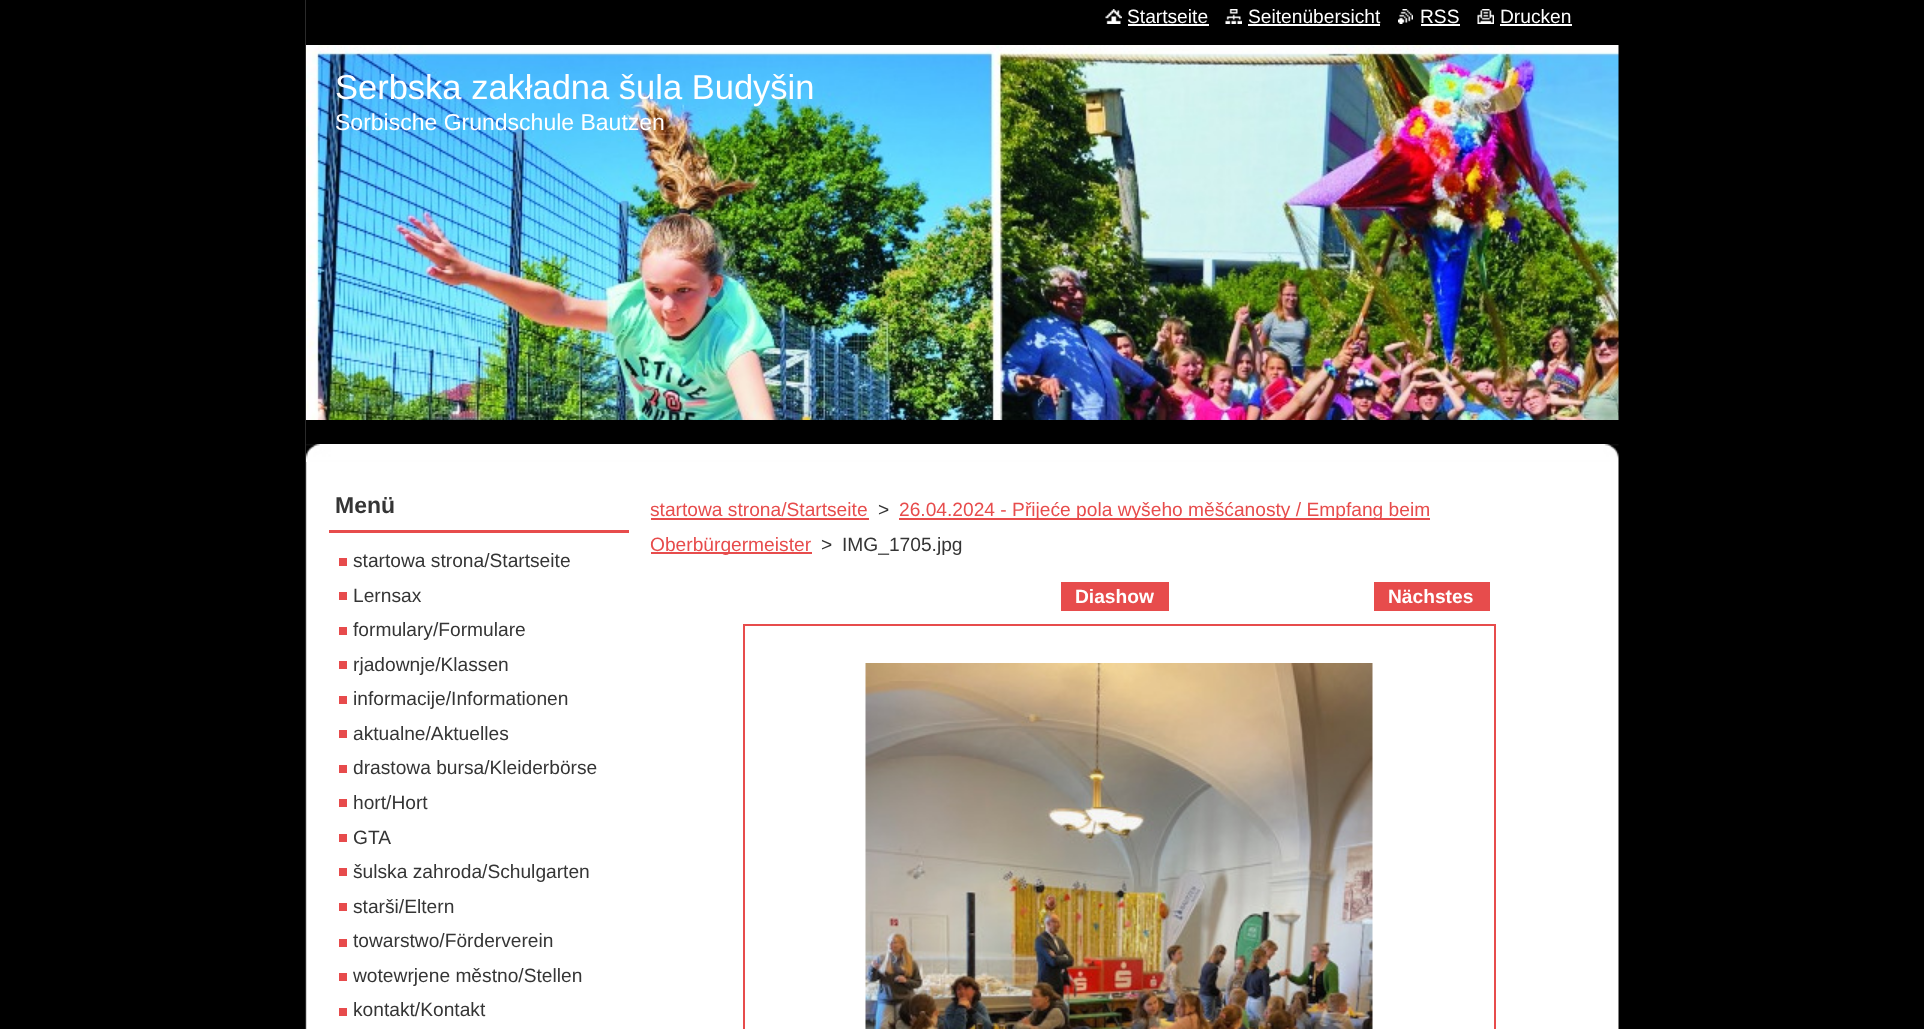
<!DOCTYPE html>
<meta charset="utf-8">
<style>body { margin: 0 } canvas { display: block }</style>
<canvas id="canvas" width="1924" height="1029"></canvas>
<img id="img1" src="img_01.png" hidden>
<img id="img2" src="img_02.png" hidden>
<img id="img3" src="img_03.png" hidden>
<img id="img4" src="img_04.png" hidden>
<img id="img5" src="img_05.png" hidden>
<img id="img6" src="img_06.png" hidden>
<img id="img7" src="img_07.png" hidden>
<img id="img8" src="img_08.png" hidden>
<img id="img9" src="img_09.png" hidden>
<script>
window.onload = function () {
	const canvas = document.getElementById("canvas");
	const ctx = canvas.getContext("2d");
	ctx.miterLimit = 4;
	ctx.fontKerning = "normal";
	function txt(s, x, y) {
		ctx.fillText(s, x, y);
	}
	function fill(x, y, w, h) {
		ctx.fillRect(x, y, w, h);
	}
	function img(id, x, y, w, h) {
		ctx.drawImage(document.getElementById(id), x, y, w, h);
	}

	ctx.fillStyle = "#000000";
	fill(0, 0, 1924, 1029);
	img("img1", 305, 0, 1314, 988);
	img("img2", 305, 988, 1314, 41);
	fill(306, 0, 1313, 462);
	img("img3", 1105, 9, 17, 15);
	ctx.fillStyle = "#FFFFFF";
	fill(1128, 24, 81, 2);
	img("img4", 1225, 9, 17, 15);
	fill(1248, 24, 132, 2);
	img("img5", 1398, 9, 15, 15);
	fill(1421, 24, 39, 2);
	img("img6", 1477, 9, 17, 15);
	fill(1500, 24, 72, 2);
	img("img7", 306, 444, 1313, 18);
	img("img8", 306, 45, 1313, 375);
	ctx.fillStyle = "#E74C4C";
	fill(329, 530, 300, 3);
	ctx.fillStyle = "#E74B4C";
	fill(339, 558, 8, 8);
	fill(339, 592, 8, 8);
	fill(339, 627, 8, 8);
	fill(339, 661, 8, 8);
	fill(339, 696, 8, 8);
	fill(339, 730, 8, 8);
	fill(339, 765, 8, 8);
	fill(339, 799, 8, 8);
	fill(339, 834, 8, 8);
	fill(339, 868, 8, 8);
	fill(339, 903, 8, 8);
	fill(339, 939, 8, 8);
	fill(339, 973, 8, 8);
	fill(339, 1008, 8, 8);
	ctx.fillStyle = "#E74C4C";
	fill(651, 518, 218, 2);
	fill(899, 518, 531, 2);
	fill(651, 552, 161, 2);
	fill(1061, 582, 108, 29);
	fill(1374, 582, 116, 29);
	ctx.strokeStyle = "#E74C4C";
	ctx.lineWidth = 2;
	ctx.strokeRect(744, 625, 751, 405);
	img("img9", 865, 663, 508, 366);
	ctx.font = "19.2px Liberation Sans";
	ctx.fillStyle = "#FFFFFF";
	txt("Startseite", 1127, 23);
	txt("Seitenübersicht", 1248, 23);
	txt("RSS", 1420, 23);
	txt("Drucken", 1500, 23);
	ctx.font = "34.5px Liberation Sans";
	txt("Serbska zakładna šula Budyšin", 335, 99);
	ctx.font = "23px Liberation Sans";
	txt("Sorbische Grundschule Bautzen", 335, 130);
	ctx.font = "bold 23px Liberation Sans";
	ctx.fillStyle = "#353535";
	txt("Menü", 335, 513);
	ctx.font = "19.2px Liberation Sans";
	txt("startowa strona/Startseite", 353, 567);
	txt("Lernsax", 353, 602);
	txt("formulary/Formulare", 353, 636);
	txt("rjadownje/Klassen", 353, 671);
	txt("informacije/Informationen", 353, 705);
	txt("aktualne/Aktuelles", 353, 740);
	txt("drastowa bursa/Kleiderbörse", 353, 774);
	txt("hort/Hort", 353, 809);
	txt("GTA", 353, 844);
	txt("šulska zahroda/Schulgarten", 353, 878);
	txt("starši/Eltern", 353, 913);
	txt("towarstwo/Förderverein", 353, 947);
	txt("wotewrjene městno/Stellen", 353, 982);
	txt("kontakt/Kontakt", 353, 1016);
	ctx.fillStyle = "#E74C4C";
	txt("startowa strona/Startseite", 650, 516);
	ctx.fillStyle = "#353535";
	txt(">", 878, 516);
	ctx.fillStyle = "#E74C4C";
	txt("26.04.2024 - Přijeće pola wyšeho měšćanosty / Empfang beim", 899, 516);
	txt("Oberbürgermeister", 650, 551);
	ctx.fillStyle = "#353535";
	txt(">", 821, 551);
	txt("IMG_1705.jpg", 842, 551);
	ctx.font = "bold 19.2px Liberation Sans";
	ctx.fillStyle = "#FFFFFF";
	txt("Diashow", 1075, 603);
	txt("Nächstes", 1388, 603);
};
</script>
